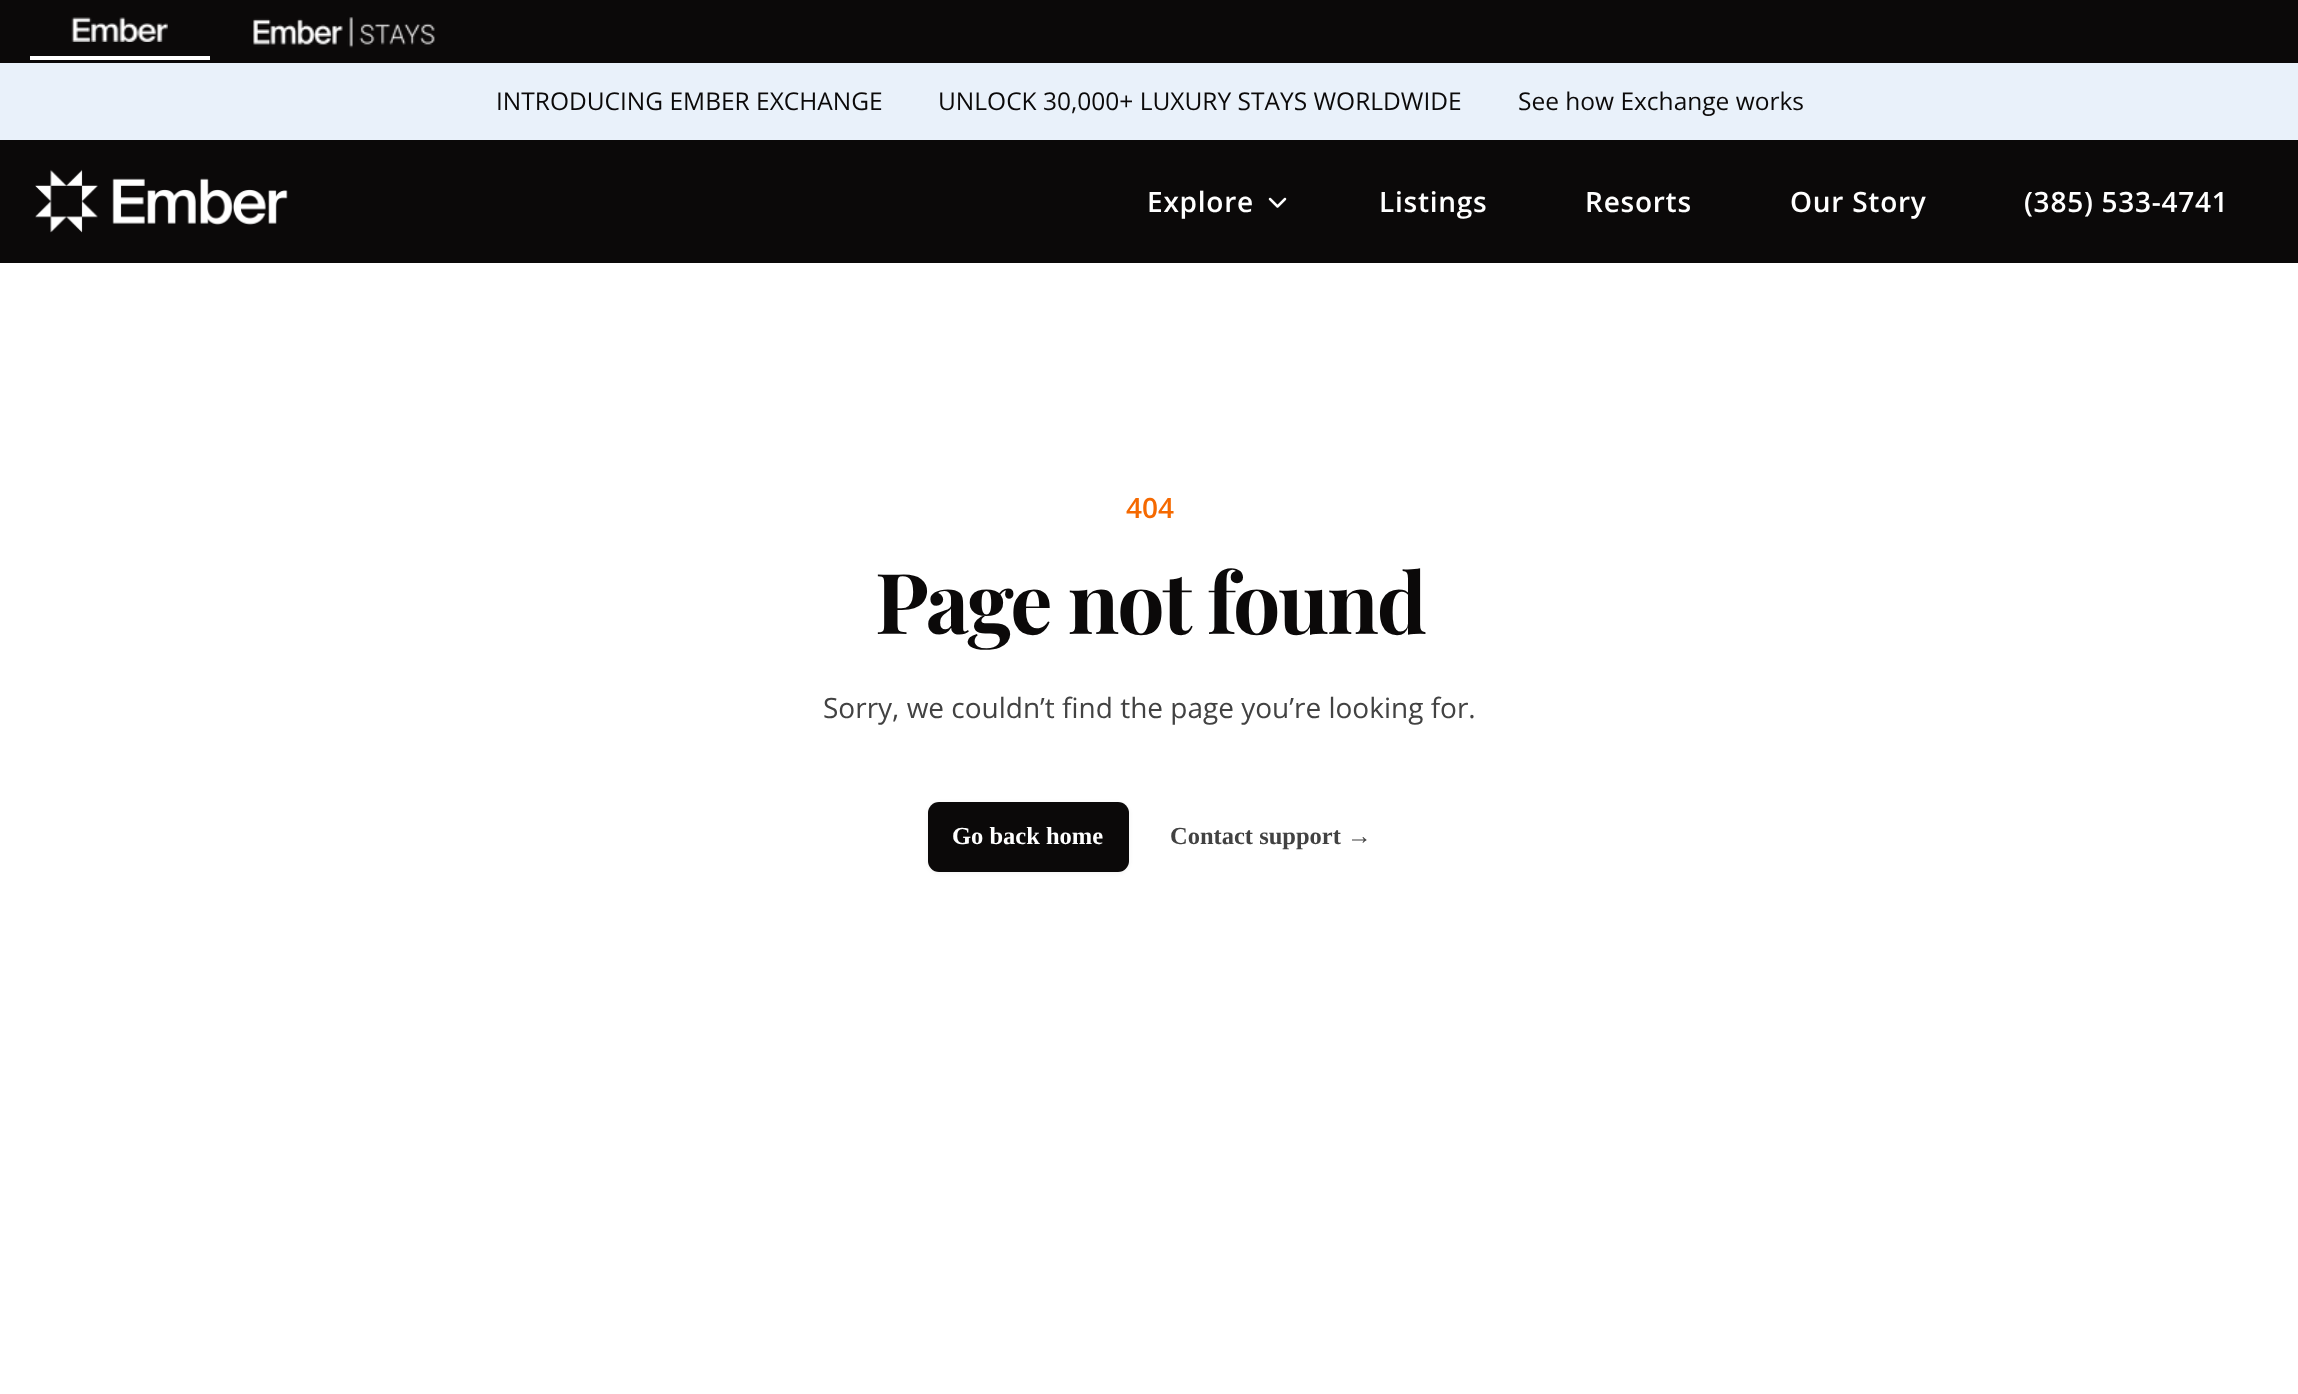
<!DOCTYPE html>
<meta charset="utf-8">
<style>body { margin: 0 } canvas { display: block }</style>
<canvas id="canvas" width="2298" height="1394"></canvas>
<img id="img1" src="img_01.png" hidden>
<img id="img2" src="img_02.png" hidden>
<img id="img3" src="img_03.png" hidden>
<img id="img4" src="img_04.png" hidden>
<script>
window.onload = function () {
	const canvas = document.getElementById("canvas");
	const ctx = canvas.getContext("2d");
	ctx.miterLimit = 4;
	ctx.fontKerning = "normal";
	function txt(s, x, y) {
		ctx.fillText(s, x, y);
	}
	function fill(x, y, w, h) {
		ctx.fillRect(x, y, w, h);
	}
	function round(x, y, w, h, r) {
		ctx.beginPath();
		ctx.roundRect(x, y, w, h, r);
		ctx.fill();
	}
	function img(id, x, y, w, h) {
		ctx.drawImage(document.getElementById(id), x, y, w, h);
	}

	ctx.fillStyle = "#FFFFFF";
	fill(0, 0, 2298, 1394);
	ctx.fillStyle = "#0B0909";
	fill(0, 0, 2298, 63);
	ctx.fillStyle = "#FFFFFF";
	fill(30, 56, 180, 4);
	img("img1", 71, 17, 97, 25);
	img("img2", 253, 17, 182, 31);
	ctx.fillStyle = "#E9F1FA";
	fill(0, 63, 2298, 77);
	ctx.fillStyle = "#0B0909";
	fill(0, 140, 2298, 123);
	img("img3", 35, 169, 253, 64);
	img("img4", 1268, 197, 19, 11);
	ctx.fillStyle = "rgba(0, 0, 0, 0.05)";
	ctx.filter = "blur(2px)";
	ctx.beginPath();
	ctx.roundRect(928, 803, 201, 70, 11);
	ctx.fill();
	ctx.filter = "none";
	ctx.fillStyle = "#0B0909";
	round(928, 802, 201, 70, 11);
	ctx.font = "24.5px Open Sans";
	txt("INTRODUCING EMBER EXCHANGE", 496, 110);
	txt("UNLOCK 30,000+ LUXURY STAYS WORLDWIDE", 938, 110);
	txt("See how Exchange works", 1518, 110);
	ctx.letterSpacing = "0.75px";
	ctx.font = "600 28px Open Sans";
	ctx.fillStyle = "#FFFFFF";
	txt("Explore", 1147, 212);
	txt("Listings", 1379, 212);
	txt("Resorts", 1585, 212);
	txt("Our Story", 1790, 212);
	txt("(385) 533-4741", 2024, 212);
	ctx.letterSpacing = "0px";
	ctx.fillStyle = "#F56900";
	txt("404", 1126, 518);
	ctx.letterSpacing = "-2.1px";
	ctx.font = "bold 84px Playfair Display";
	ctx.fillStyle = "#0B0909";
	txt("Page not found", 875, 634);
	ctx.letterSpacing = "0px";
	ctx.font = "28px Open Sans";
	ctx.fillStyle = "#424242";
	txt("Sorry, we couldn’t find the page you’re looking for.", 823, 718);
	ctx.font = "bold 24.5px Liberation Serif";
	ctx.fillStyle = "#FFFFFF";
	txt("Go back home", 952, 844);
	ctx.fillStyle = "#424242";
	txt("Contact support →", 1170, 844);
};
</script>
